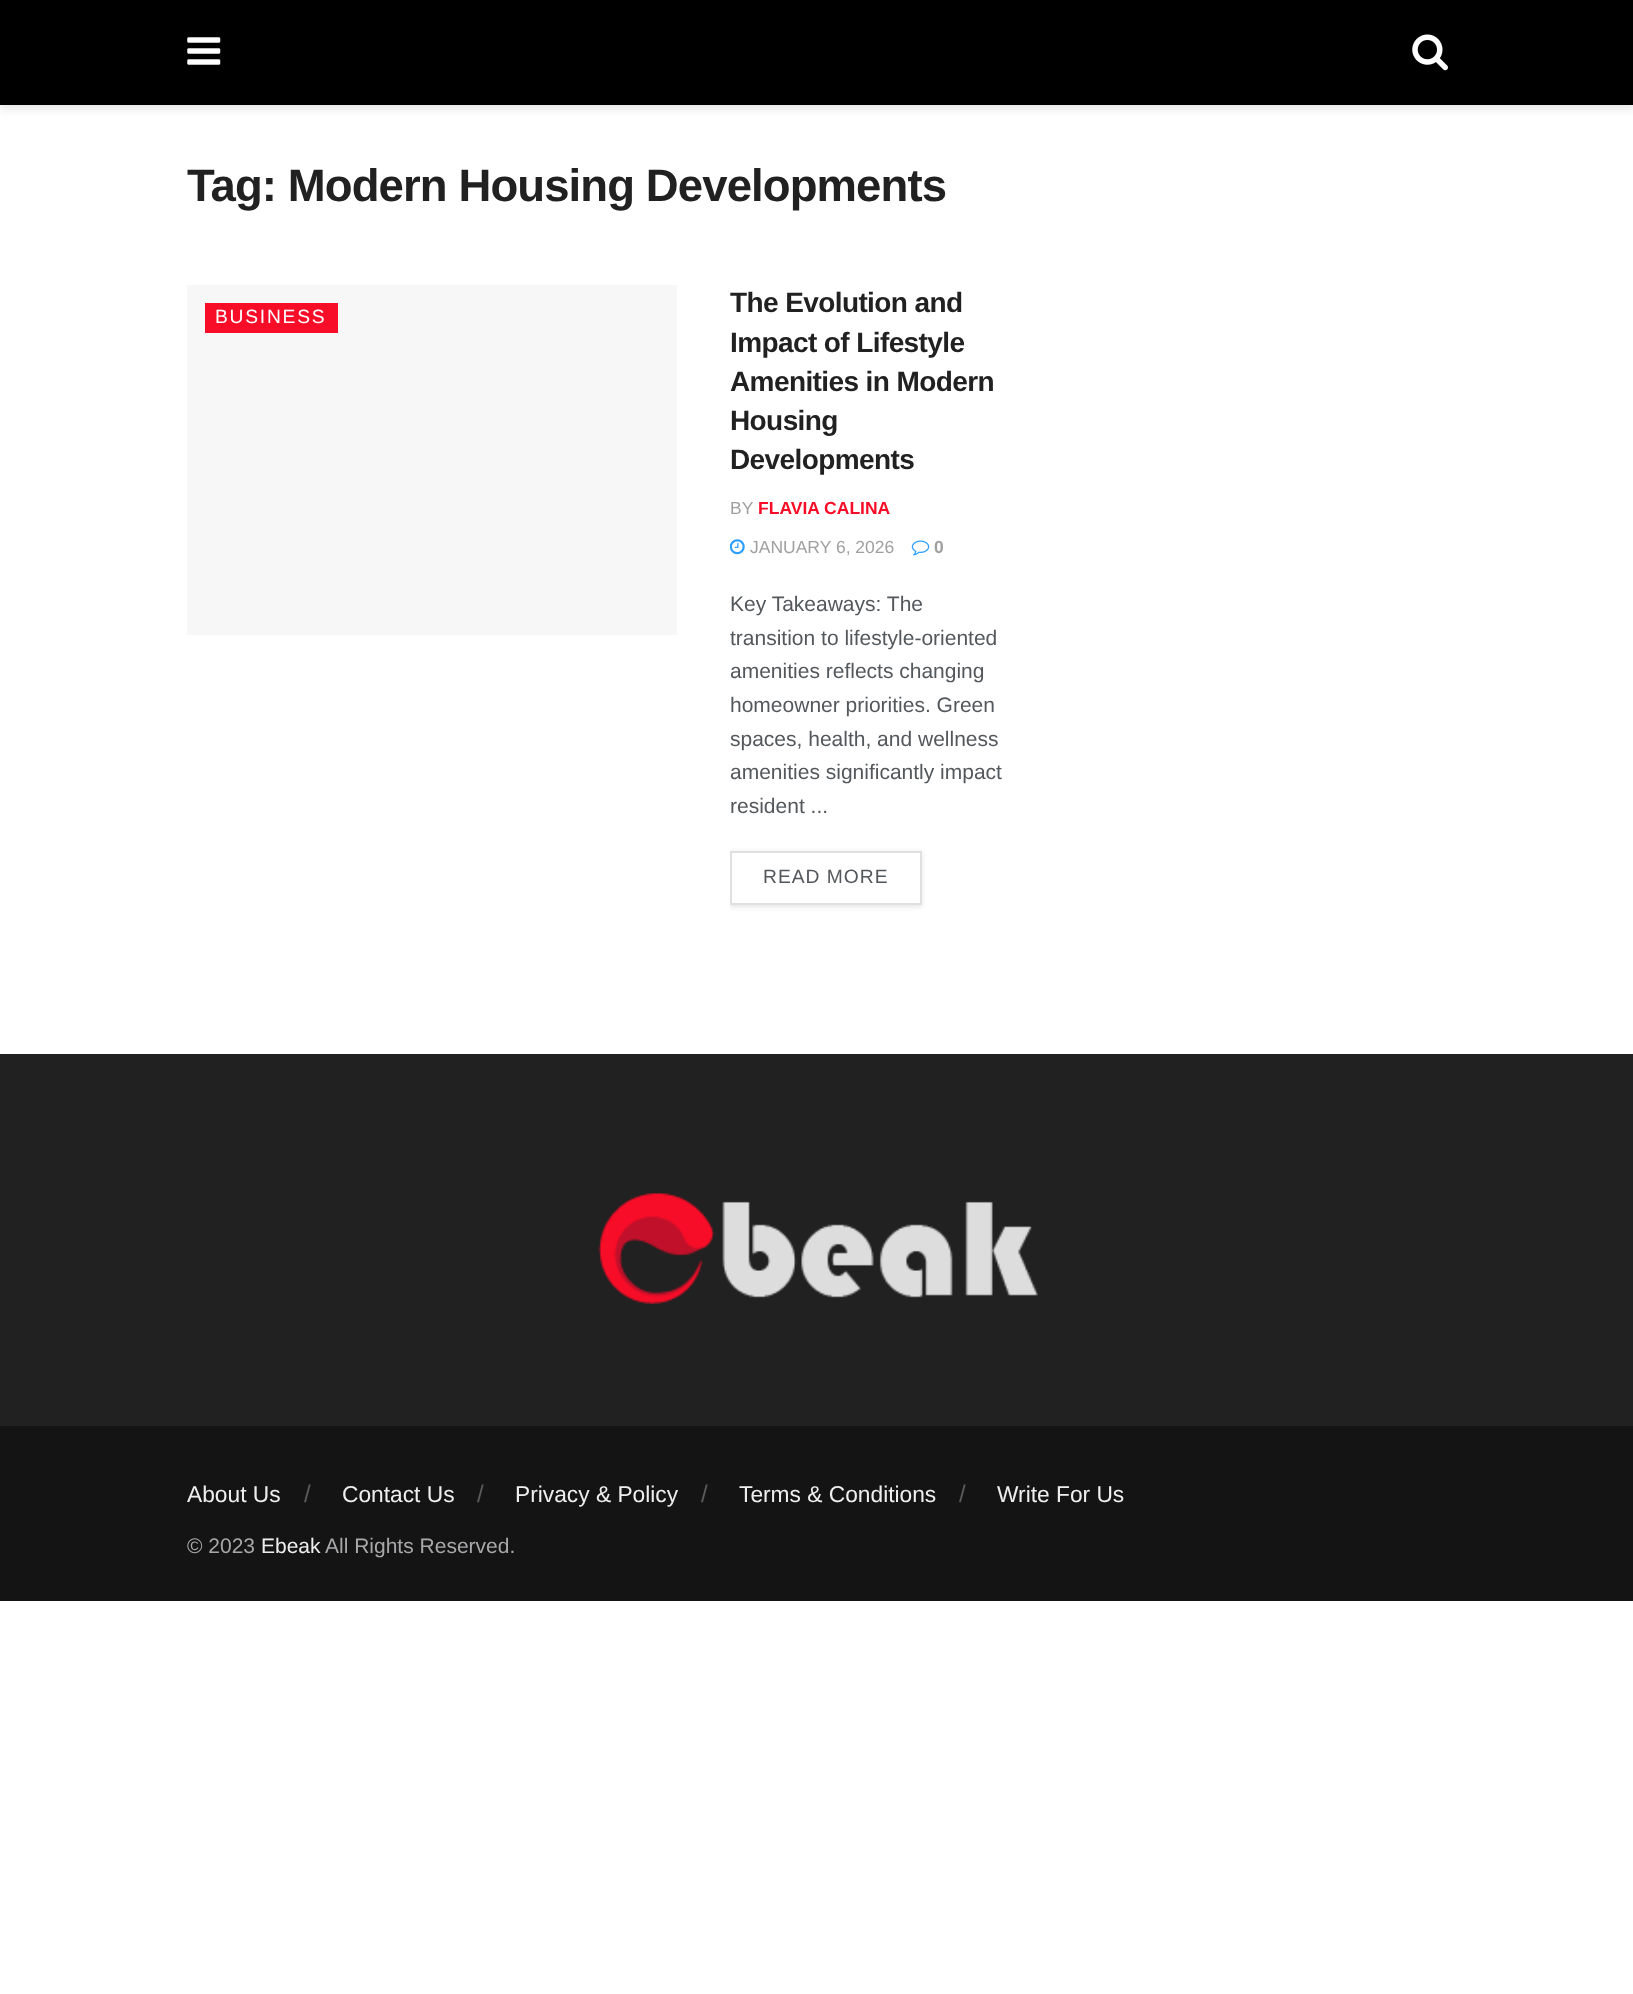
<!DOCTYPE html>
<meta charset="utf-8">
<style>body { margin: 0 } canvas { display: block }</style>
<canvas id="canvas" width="1633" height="1994"></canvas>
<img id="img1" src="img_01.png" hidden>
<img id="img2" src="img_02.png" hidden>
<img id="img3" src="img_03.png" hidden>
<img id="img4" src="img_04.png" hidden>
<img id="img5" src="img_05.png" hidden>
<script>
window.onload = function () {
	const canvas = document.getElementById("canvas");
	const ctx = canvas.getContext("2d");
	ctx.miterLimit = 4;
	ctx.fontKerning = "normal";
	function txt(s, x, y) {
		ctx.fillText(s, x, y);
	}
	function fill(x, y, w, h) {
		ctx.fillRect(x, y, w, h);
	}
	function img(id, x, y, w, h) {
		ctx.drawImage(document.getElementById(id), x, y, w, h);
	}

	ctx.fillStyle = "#FFFFFF";
	fill(0, 0, 1633, 1994);
	ctx.fillStyle = "rgba(0, 0, 0, 0.1)";
	ctx.filter = "blur(5px)";
	ctx.beginPath();
	ctx.rect(0, 4, 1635, 105);
	ctx.fill();
	ctx.filter = "none";
	ctx.fillStyle = "#000000";
	fill(0, 0, 1633, 105);
	img("img1", 187, 37, 34, 28);
	img("img2", 1412, 34, 36, 37);
	ctx.fillStyle = "#F7F7F7";
	fill(187, 285, 490, 350);
	ctx.fillStyle = "#F70D28";
	fill(205, 303, 133, 30);
	img("img3", 730, 539, 15, 16);
	img("img4", 911, 540, 19, 16);
	ctx.save();
	ctx.beginPath();
	ctx.rect(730, 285, 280, 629);
	ctx.clip();
	ctx.beginPath();
	ctx.moveTo(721, 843);
	ctx.lineTo(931, 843);
	ctx.lineTo(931, 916);
	ctx.lineTo(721, 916);
	ctx.closePath();
	ctx.moveTo(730, 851);
	ctx.lineTo(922, 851);
	ctx.lineTo(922, 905);
	ctx.lineTo(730, 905);
	ctx.closePath();
	ctx.clip("evenodd");
	ctx.fillStyle = "rgba(0, 0, 0, 0.1)";
	ctx.filter = "blur(2.5px)";
	ctx.beginPath();
	ctx.rect(730, 852, 192, 55);
	ctx.fill();
	ctx.filter = "none";
	ctx.restore();
	ctx.strokeStyle = "#E0E0E0";
	ctx.lineWidth = 2;
	ctx.strokeRect(731, 852, 190, 52);
	ctx.fillStyle = "#212121";
	fill(0, 1054, 1633, 372);
	img("img5", 598, 1193, 440, 111);
	ctx.fillStyle = "#141414";
	fill(0, 1426, 1633, 175);
	ctx.letterSpacing = "-0.9px";
	ctx.font = "bold 45.5px Liberation Sans";
	ctx.fillStyle = "#212121";
	txt("Tag: Modern Housing Developments", 187, 201);
	ctx.letterSpacing = "1.75px";
	ctx.font = "19.25px Liberation Sans";
	ctx.fillStyle = "#FFFFFF";
	txt("BUSINESS", 215, 323);
	ctx.letterSpacing = "-0.6px";
	ctx.font = "bold 28px Liberation Sans";
	ctx.fillStyle = "#212121";
	txt("The Evolution and", 730, 312);
	txt("Impact of Lifestyle", 730, 352);
	txt("Amenities in Modern", 730, 391);
	txt("Housing", 730, 430);
	txt("Developments", 730, 469);
	ctx.letterSpacing = "0px";
	ctx.font = "17.5px Liberation Sans";
	ctx.fillStyle = "#A0A0A0";
	txt("BY", 730, 514);
	ctx.font = "bold 17.5px Liberation Sans";
	ctx.fillStyle = "#F70D28";
	txt("FLAVIA CALINA", 758, 514);
	ctx.font = "17.5px Liberation Sans";
	ctx.fillStyle = "#A0A0A0";
	txt("JANUARY 6, 2026", 750, 553);
	ctx.font = "bold 17.5px Liberation Sans";
	txt("0", 934, 553);
	ctx.font = "21px Liberation Sans";
	ctx.fillStyle = "#53585C";
	txt("Key Takeaways: The", 730, 611);
	txt("transition to lifestyle-oriented", 730, 645);
	txt("amenities reflects changing", 730, 678);
	txt("homeowner priorities. Green", 730, 712);
	txt("spaces, health, and wellness", 730, 746);
	txt("amenities significantly impact", 730, 779);
	txt("resident ...", 730, 813);
	ctx.letterSpacing = "1px";
	ctx.font = "19.25px Liberation Sans";
	txt("READ MORE", 763, 883);
	ctx.letterSpacing = "0px";
	ctx.font = "22.75px Liberation Sans";
	ctx.fillStyle = "#EEEEEE";
	txt("About Us", 187, 1502);
	ctx.font = "24px Liberation Sans";
	ctx.fillStyle = "#5B5B5B";
	txt("/", 304, 1502);
	ctx.font = "22.75px Liberation Sans";
	ctx.fillStyle = "#EEEEEE";
	txt("Contact Us", 342, 1502);
	ctx.font = "24px Liberation Sans";
	ctx.fillStyle = "#5B5B5B";
	txt("/", 477, 1502);
	ctx.font = "22.75px Liberation Sans";
	ctx.fillStyle = "#EEEEEE";
	txt("Privacy & Policy", 515, 1502);
	ctx.font = "24px Liberation Sans";
	ctx.fillStyle = "#5B5B5B";
	txt("/", 701, 1502);
	ctx.font = "22.75px Liberation Sans";
	ctx.fillStyle = "#EEEEEE";
	txt("Terms & Conditions", 739, 1502);
	ctx.font = "24px Liberation Sans";
	ctx.fillStyle = "#5B5B5B";
	txt("/", 959, 1502);
	ctx.font = "22.75px Liberation Sans";
	ctx.fillStyle = "#EEEEEE";
	txt("Write For Us", 997, 1502);
	ctx.font = "21px Liberation Sans";
	ctx.fillStyle = "#A8A8AA";
	txt("© 2023", 187, 1553);
	ctx.fillStyle = "#EEEEEE";
	txt("Ebeak", 261, 1553);
	ctx.fillStyle = "#A8A8AA";
	txt("All Rights Reserved.", 325, 1553);
};
</script>
